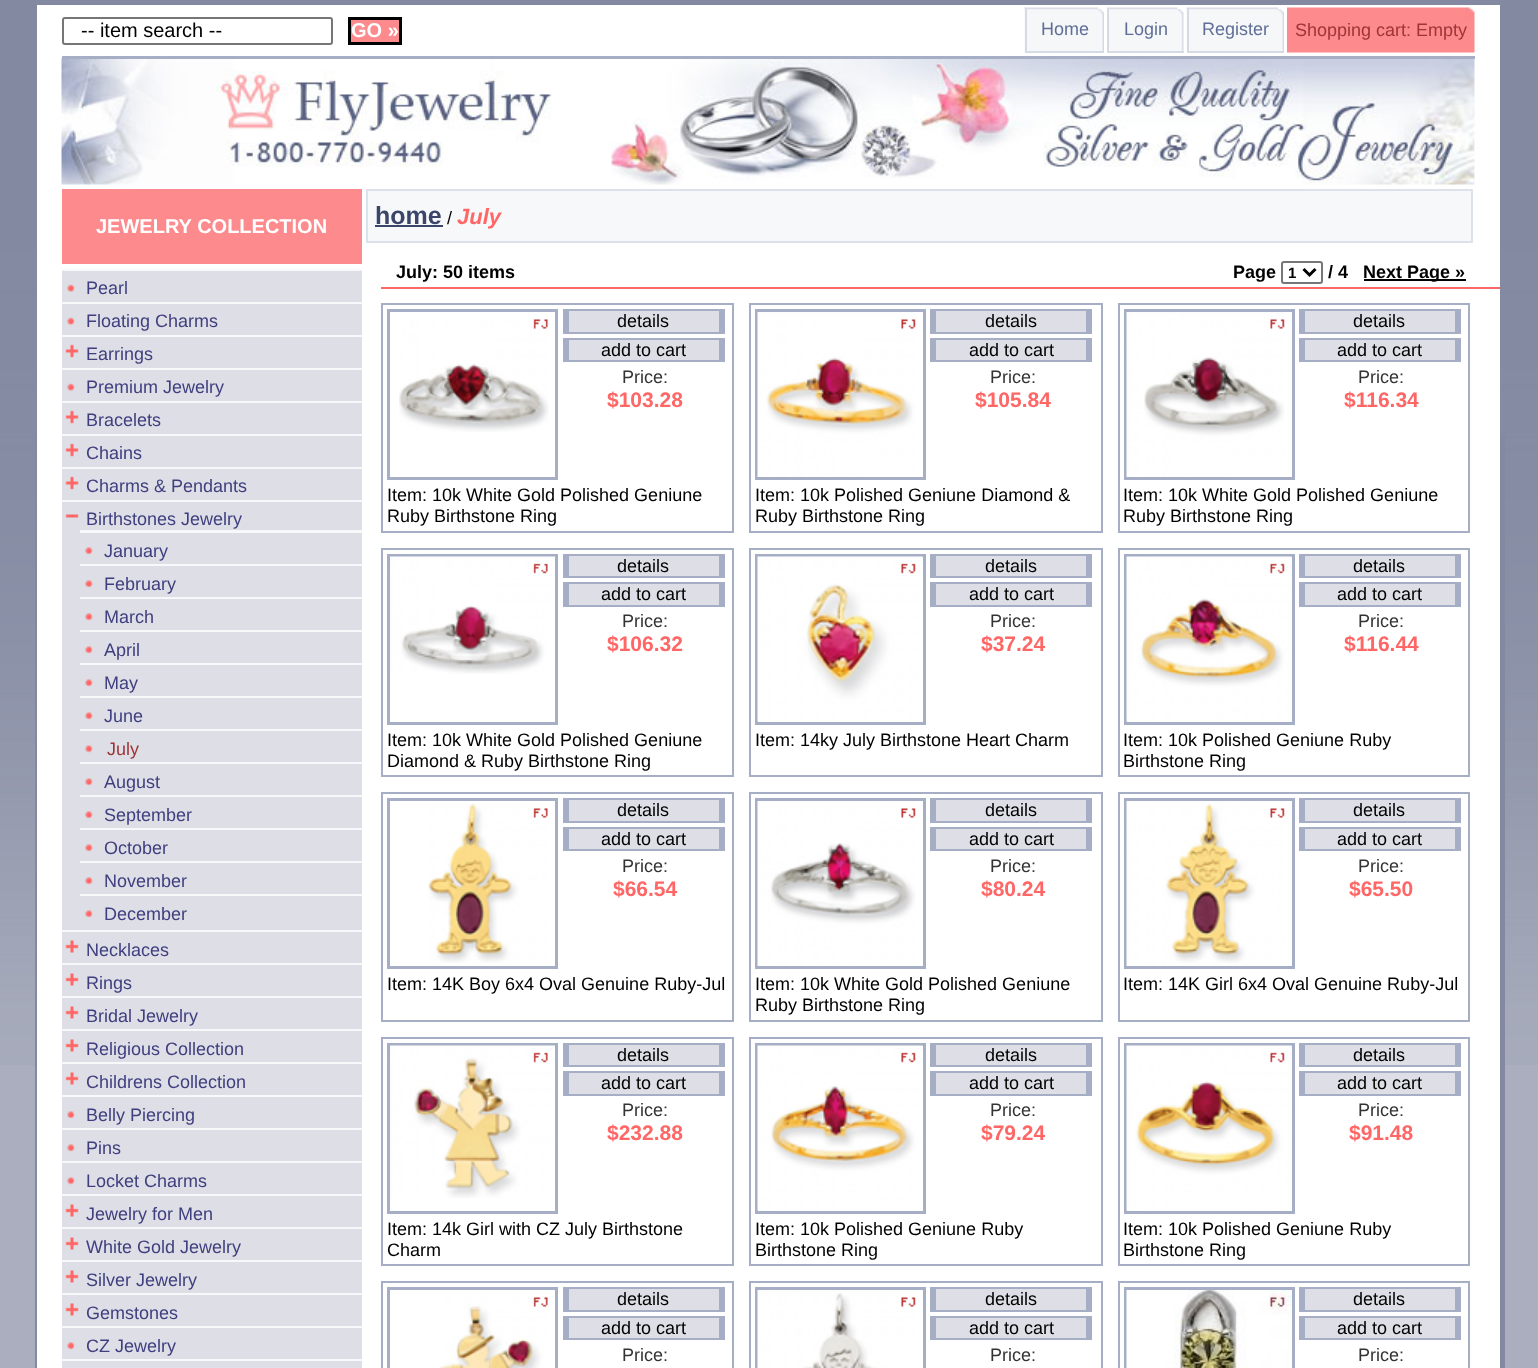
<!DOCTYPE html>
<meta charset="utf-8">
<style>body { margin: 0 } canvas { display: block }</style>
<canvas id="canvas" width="1538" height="1368"></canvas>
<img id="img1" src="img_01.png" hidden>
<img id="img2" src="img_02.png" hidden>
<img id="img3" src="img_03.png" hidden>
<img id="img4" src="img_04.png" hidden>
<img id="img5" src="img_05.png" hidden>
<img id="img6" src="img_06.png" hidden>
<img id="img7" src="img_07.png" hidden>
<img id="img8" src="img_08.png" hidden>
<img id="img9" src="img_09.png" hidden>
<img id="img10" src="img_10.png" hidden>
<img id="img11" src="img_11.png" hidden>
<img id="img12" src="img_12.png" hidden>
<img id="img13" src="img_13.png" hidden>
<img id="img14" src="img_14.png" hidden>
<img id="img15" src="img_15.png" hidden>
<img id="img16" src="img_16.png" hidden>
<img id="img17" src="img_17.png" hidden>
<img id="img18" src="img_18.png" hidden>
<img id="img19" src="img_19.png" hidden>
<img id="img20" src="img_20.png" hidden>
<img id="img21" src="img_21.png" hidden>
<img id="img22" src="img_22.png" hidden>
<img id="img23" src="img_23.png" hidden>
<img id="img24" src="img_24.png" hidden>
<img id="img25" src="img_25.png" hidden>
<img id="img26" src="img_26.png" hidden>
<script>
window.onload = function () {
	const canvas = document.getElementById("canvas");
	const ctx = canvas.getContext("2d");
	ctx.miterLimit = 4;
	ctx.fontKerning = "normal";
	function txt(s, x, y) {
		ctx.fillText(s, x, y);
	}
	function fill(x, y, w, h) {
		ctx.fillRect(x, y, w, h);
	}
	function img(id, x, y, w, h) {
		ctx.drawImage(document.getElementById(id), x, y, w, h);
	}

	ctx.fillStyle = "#AAAEBE";
	fill(0, 0, 1538, 1368);
	img("img1", 0, 0, 1538, 1065);
	ctx.fillStyle = "#FFFFFF";
	fill(37, 5, 1463, 1363);
	ctx.beginPath();
	ctx.roundRect(63, 18, 269, 26, 2);
	ctx.strokeStyle = "#767676";
	ctx.lineWidth = 2;
	ctx.stroke();
	ctx.fillStyle = "#FD8A8D";
	ctx.beginPath();
	ctx.rect(349.5, 18.5, 51, 25);
	ctx.fill();
	ctx.strokeStyle = "#000000";
	ctx.lineWidth = 3;
	ctx.stroke();
	img("img2", 1024, 7, 80, 46);
	ctx.fillStyle = "#D5DAE5";
	fill(1025, 51, 79, 2);
	fill(1025, 8, 2, 45);
	img("img3", 1107, 7, 77, 44);
	fill(1107, 51, 77, 2);
	fill(1107, 8, 2, 45);
	img("img4", 1186, 7, 98, 46);
	fill(1187, 51, 97, 2);
	fill(1187, 8, 2, 45);
	img("img5", 1287, 7, 188, 46);
	img("img6", 61, 58, 1414, 127);
	ctx.fillStyle = "#A6AEC5";
	fill(62, 56, 1413, 3);
	ctx.fillStyle = "#8389A1";
	fill(1500, 434, 5, 934);
	fill(35, 434, 2, 934);
	ctx.fillStyle = "#FD8A8D";
	fill(62, 189, 300, 75);
	ctx.fillStyle = "#DEDFE6";
	fill(62, 271, 300, 1097);
	ctx.fillStyle = "#F7F8FA";
	fill(62, 269, 300, 2);
	img("img7", 67, 284, 9, 9);
	fill(62, 302, 300, 2);
	img("img7", 67, 317, 9, 9);
	fill(62, 335, 300, 2);
	img("img8", 65, 344, 14, 14);
	fill(62, 368, 300, 2);
	img("img7", 67, 383, 9, 9);
	fill(62, 401, 300, 2);
	img("img8", 65, 410, 14, 14);
	fill(62, 434, 300, 2);
	img("img8", 65, 443, 14, 14);
	fill(62, 467, 300, 2);
	img("img8", 65, 476, 14, 14);
	fill(62, 500, 300, 2);
	img("img9", 65, 514, 14, 4);
	fill(80, 530, 282, 3);
	img("img10", 85, 547, 9, 8);
	fill(80, 564, 282, 2);
	img("img10", 85, 580, 9, 8);
	fill(80, 597, 282, 2);
	img("img10", 85, 613, 9, 8);
	fill(80, 630, 282, 2);
	img("img10", 85, 646, 9, 8);
	fill(80, 663, 282, 2);
	img("img10", 85, 679, 9, 8);
	fill(80, 696, 282, 2);
	img("img10", 85, 712, 9, 8);
	fill(80, 729, 282, 2);
	img("img10", 85, 745, 9, 8);
	fill(80, 762, 282, 2);
	img("img10", 85, 778, 9, 8);
	fill(80, 795, 282, 2);
	img("img10", 85, 811, 9, 8);
	fill(80, 828, 282, 2);
	img("img10", 85, 844, 9, 8);
	fill(80, 861, 282, 2);
	img("img10", 85, 877, 9, 8);
	fill(80, 894, 282, 2);
	img("img10", 85, 910, 9, 8);
	fill(62, 930, 300, 2);
	img("img11", 65, 940, 14, 13);
	fill(62, 963, 300, 2);
	img("img11", 65, 973, 14, 13);
	fill(62, 996, 300, 2);
	img("img11", 65, 1006, 14, 13);
	fill(62, 1029, 300, 2);
	img("img11", 65, 1039, 14, 13);
	fill(62, 1062, 300, 2);
	img("img11", 65, 1072, 14, 13);
	fill(62, 1095, 300, 2);
	img("img10", 67, 1111, 9, 8);
	fill(62, 1128, 300, 2);
	img("img10", 67, 1144, 9, 8);
	fill(62, 1161, 300, 2);
	img("img10", 67, 1177, 9, 8);
	fill(62, 1194, 300, 2);
	img("img11", 65, 1204, 14, 13);
	fill(62, 1227, 300, 2);
	img("img11", 65, 1237, 14, 13);
	fill(62, 1260, 300, 2);
	img("img11", 65, 1270, 14, 13);
	fill(62, 1293, 300, 2);
	img("img11", 65, 1303, 14, 13);
	fill(62, 1326, 300, 2);
	img("img10", 67, 1342, 9, 8);
	fill(62, 1359, 300, 2);
	ctx.beginPath();
	ctx.rect(367, 190, 1105, 52);
	ctx.fill();
	ctx.strokeStyle = "#DDE1EA";
	ctx.lineWidth = 2;
	ctx.stroke();
	ctx.fillStyle = "#3B4569";
	fill(375, 225, 68, 2);
	ctx.fillStyle = "#FF6666";
	fill(381, 287, 1119, 2);
	ctx.beginPath();
	ctx.roundRect(1282, 262, 40, 21, 2);
	ctx.strokeStyle = "#767676";
	ctx.stroke();
	ctx.beginPath();
	ctx.moveTo(1303.5, 269);
	ctx.lineTo(1309.5, 275);
	ctx.lineTo(1315.5, 269);
	ctx.strokeStyle = "#000000";
	ctx.lineWidth = 3;
	ctx.stroke();
	ctx.fillStyle = "#000000";
	fill(1364, 279, 102, 2);
	ctx.strokeStyle = "#A6AEC5";
	ctx.lineWidth = 2;
	ctx.strokeRect(382, 304, 351, 228);
	ctx.lineWidth = 3;
	ctx.strokeRect(388.5, 310.5, 168, 168);
	img("img12", 399, 319, 150, 113);
	ctx.fillStyle = "#DEDFE6";
	fill(569, 311, 150, 21);
	ctx.fillStyle = "#A6AEC5";
	fill(563, 309, 162, 2);
	fill(719, 309, 6, 24);
	fill(563, 332, 162, 2);
	fill(563, 309, 6, 24);
	ctx.fillStyle = "#DEDFE6";
	fill(569, 340, 150, 20);
	ctx.fillStyle = "#A6AEC5";
	fill(563, 338, 162, 2);
	fill(719, 338, 6, 24);
	fill(563, 360, 162, 2);
	fill(563, 338, 6, 24);
	ctx.lineWidth = 2;
	ctx.strokeRect(750, 304, 352, 228);
	ctx.lineWidth = 3;
	ctx.strokeRect(756.5, 310.5, 168, 168);
	img("img13", 757, 312, 159, 165);
	ctx.fillStyle = "#DEDFE6";
	fill(936, 311, 150, 21);
	ctx.fillStyle = "#A6AEC5";
	fill(930, 309, 162, 2);
	fill(1086, 309, 6, 24);
	fill(930, 332, 162, 2);
	fill(930, 309, 6, 24);
	ctx.fillStyle = "#DEDFE6";
	fill(936, 340, 150, 20);
	ctx.fillStyle = "#A6AEC5";
	fill(930, 338, 162, 2);
	fill(1086, 338, 6, 24);
	fill(930, 360, 162, 2);
	fill(930, 338, 6, 24);
	ctx.lineWidth = 2;
	ctx.strokeRect(1119, 304, 350, 228);
	ctx.lineWidth = 3;
	ctx.strokeRect(1125.5, 310.5, 168, 168);
	img("img14", 1126, 312, 159, 165);
	ctx.fillStyle = "#DEDFE6";
	fill(1305, 311, 150, 21);
	ctx.fillStyle = "#A6AEC5";
	fill(1299, 309, 162, 2);
	fill(1455, 309, 6, 24);
	fill(1299, 332, 162, 2);
	fill(1299, 309, 6, 24);
	ctx.fillStyle = "#DEDFE6";
	fill(1305, 340, 150, 20);
	ctx.fillStyle = "#A6AEC5";
	fill(1299, 338, 162, 2);
	fill(1455, 338, 6, 24);
	fill(1299, 360, 162, 2);
	fill(1299, 338, 6, 24);
	ctx.lineWidth = 2;
	ctx.strokeRect(382, 549, 351, 227);
	ctx.lineWidth = 3;
	ctx.strokeRect(388.5, 555.5, 168, 168);
	img("img15", 390, 556, 165, 118);
	ctx.fillStyle = "#DEDFE6";
	fill(569, 556, 150, 20);
	ctx.fillStyle = "#A6AEC5";
	fill(563, 554, 162, 2);
	fill(719, 554, 6, 24);
	fill(563, 576, 162, 2);
	fill(563, 554, 6, 24);
	ctx.fillStyle = "#DEDFE6";
	fill(569, 584, 150, 21);
	ctx.fillStyle = "#A6AEC5";
	fill(563, 582, 162, 2);
	fill(719, 582, 6, 24);
	fill(563, 605, 162, 2);
	fill(563, 582, 6, 24);
	ctx.lineWidth = 2;
	ctx.strokeRect(750, 549, 352, 227);
	ctx.lineWidth = 3;
	ctx.strokeRect(756.5, 555.5, 168, 168);
	img("img16", 757, 556, 166, 166);
	ctx.fillStyle = "#DEDFE6";
	fill(936, 556, 150, 20);
	ctx.fillStyle = "#A6AEC5";
	fill(930, 554, 162, 2);
	fill(1086, 554, 6, 24);
	fill(930, 576, 162, 2);
	fill(930, 554, 6, 24);
	ctx.fillStyle = "#DEDFE6";
	fill(936, 584, 150, 21);
	ctx.fillStyle = "#A6AEC5";
	fill(930, 582, 162, 2);
	fill(1086, 582, 6, 24);
	fill(930, 605, 162, 2);
	fill(930, 582, 6, 24);
	ctx.lineWidth = 2;
	ctx.strokeRect(1119, 549, 350, 227);
	ctx.lineWidth = 3;
	ctx.strokeRect(1125.5, 555.5, 168, 168);
	img("img17", 1126, 556, 166, 166);
	ctx.fillStyle = "#DEDFE6";
	fill(1305, 556, 150, 20);
	ctx.fillStyle = "#A6AEC5";
	fill(1299, 554, 162, 2);
	fill(1455, 554, 6, 24);
	fill(1299, 576, 162, 2);
	fill(1299, 554, 6, 24);
	ctx.fillStyle = "#DEDFE6";
	fill(1305, 584, 150, 21);
	ctx.fillStyle = "#A6AEC5";
	fill(1299, 582, 162, 2);
	fill(1455, 582, 6, 24);
	fill(1299, 605, 162, 2);
	fill(1299, 582, 6, 24);
	ctx.lineWidth = 2;
	ctx.strokeRect(382, 793, 351, 228);
	ctx.lineWidth = 3;
	ctx.strokeRect(388.5, 799.5, 168, 168);
	img("img18", 428, 803, 120, 160);
	ctx.fillStyle = "#DEDFE6";
	fill(569, 800, 150, 21);
	ctx.fillStyle = "#A6AEC5";
	fill(563, 798, 162, 2);
	fill(719, 798, 6, 24);
	fill(563, 821, 162, 2);
	fill(563, 798, 6, 24);
	ctx.fillStyle = "#DEDFE6";
	fill(569, 829, 150, 20);
	ctx.fillStyle = "#A6AEC5";
	fill(563, 827, 162, 2);
	fill(719, 827, 6, 24);
	fill(563, 849, 162, 2);
	fill(563, 827, 6, 24);
	ctx.lineWidth = 2;
	ctx.strokeRect(750, 793, 352, 228);
	ctx.lineWidth = 3;
	ctx.strokeRect(756.5, 799.5, 168, 168);
	img("img19", 757, 801, 159, 165);
	ctx.fillStyle = "#DEDFE6";
	fill(936, 800, 150, 21);
	ctx.fillStyle = "#A6AEC5";
	fill(930, 798, 162, 2);
	fill(1086, 798, 6, 24);
	fill(930, 821, 162, 2);
	fill(930, 798, 6, 24);
	ctx.fillStyle = "#DEDFE6";
	fill(936, 829, 150, 20);
	ctx.fillStyle = "#A6AEC5";
	fill(930, 827, 162, 2);
	fill(1086, 827, 6, 24);
	fill(930, 849, 162, 2);
	fill(930, 827, 6, 24);
	ctx.lineWidth = 2;
	ctx.strokeRect(1119, 793, 350, 228);
	ctx.lineWidth = 3;
	ctx.strokeRect(1125.5, 799.5, 168, 168);
	img("img20", 1126, 801, 159, 165);
	ctx.fillStyle = "#DEDFE6";
	fill(1305, 800, 150, 21);
	ctx.fillStyle = "#A6AEC5";
	fill(1299, 798, 162, 2);
	fill(1455, 798, 6, 24);
	fill(1299, 821, 162, 2);
	fill(1299, 798, 6, 24);
	ctx.fillStyle = "#DEDFE6";
	fill(1305, 829, 150, 20);
	ctx.fillStyle = "#A6AEC5";
	fill(1299, 827, 162, 2);
	fill(1455, 827, 6, 24);
	fill(1299, 849, 162, 2);
	fill(1299, 827, 6, 24);
	ctx.lineWidth = 2;
	ctx.strokeRect(382, 1038, 351, 227);
	ctx.lineWidth = 3;
	ctx.strokeRect(388.5, 1044.5, 168, 168);
	img("img21", 390, 1045, 165, 153);
	ctx.fillStyle = "#DEDFE6";
	fill(569, 1045, 150, 20);
	ctx.fillStyle = "#A6AEC5";
	fill(563, 1043, 162, 2);
	fill(719, 1043, 6, 24);
	fill(563, 1065, 162, 2);
	fill(563, 1043, 6, 24);
	ctx.fillStyle = "#DEDFE6";
	fill(569, 1073, 150, 21);
	ctx.fillStyle = "#A6AEC5";
	fill(563, 1071, 162, 2);
	fill(719, 1071, 6, 24);
	fill(563, 1094, 162, 2);
	fill(563, 1071, 6, 24);
	ctx.lineWidth = 2;
	ctx.strokeRect(750, 1038, 352, 227);
	ctx.lineWidth = 3;
	ctx.strokeRect(756.5, 1044.5, 168, 168);
	img("img22", 757, 1045, 166, 166);
	ctx.fillStyle = "#DEDFE6";
	fill(936, 1045, 150, 20);
	ctx.fillStyle = "#A6AEC5";
	fill(930, 1043, 162, 2);
	fill(1086, 1043, 6, 24);
	fill(930, 1065, 162, 2);
	fill(930, 1043, 6, 24);
	ctx.fillStyle = "#DEDFE6";
	fill(936, 1073, 150, 21);
	ctx.fillStyle = "#A6AEC5";
	fill(930, 1071, 162, 2);
	fill(1086, 1071, 6, 24);
	fill(930, 1094, 162, 2);
	fill(930, 1071, 6, 24);
	ctx.lineWidth = 2;
	ctx.strokeRect(1119, 1038, 350, 227);
	ctx.lineWidth = 3;
	ctx.strokeRect(1125.5, 1044.5, 168, 168);
	img("img23", 1126, 1045, 166, 166);
	ctx.fillStyle = "#DEDFE6";
	fill(1305, 1045, 150, 20);
	ctx.fillStyle = "#A6AEC5";
	fill(1299, 1043, 162, 2);
	fill(1455, 1043, 6, 24);
	fill(1299, 1065, 162, 2);
	fill(1299, 1043, 6, 24);
	ctx.fillStyle = "#DEDFE6";
	fill(1305, 1073, 150, 21);
	ctx.fillStyle = "#A6AEC5";
	fill(1299, 1071, 162, 2);
	fill(1455, 1071, 6, 24);
	fill(1299, 1094, 162, 2);
	fill(1299, 1071, 6, 24);
	ctx.lineWidth = 2;
	ctx.strokeRect(382, 1282, 351, 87);
	ctx.lineWidth = 3;
	ctx.strokeRect(388.5, 1288.5, 168, 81);
	img("img24", 439, 1297, 109, 71);
	ctx.fillStyle = "#DEDFE6";
	fill(569, 1289, 150, 21);
	ctx.fillStyle = "#A6AEC5";
	fill(563, 1287, 162, 2);
	fill(719, 1287, 6, 24);
	fill(563, 1310, 162, 2);
	fill(563, 1287, 6, 24);
	ctx.fillStyle = "#DEDFE6";
	fill(569, 1318, 150, 20);
	ctx.fillStyle = "#A6AEC5";
	fill(563, 1316, 162, 2);
	fill(719, 1316, 6, 24);
	fill(563, 1338, 162, 2);
	fill(563, 1316, 6, 24);
	ctx.lineWidth = 2;
	ctx.strokeRect(750, 1282, 352, 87);
	ctx.lineWidth = 3;
	ctx.strokeRect(756.5, 1288.5, 168, 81);
	img("img25", 757, 1290, 159, 78);
	ctx.fillStyle = "#DEDFE6";
	fill(936, 1289, 150, 21);
	ctx.fillStyle = "#A6AEC5";
	fill(930, 1287, 162, 2);
	fill(1086, 1287, 6, 24);
	fill(930, 1310, 162, 2);
	fill(930, 1287, 6, 24);
	ctx.fillStyle = "#DEDFE6";
	fill(936, 1318, 150, 20);
	ctx.fillStyle = "#A6AEC5";
	fill(930, 1316, 162, 2);
	fill(1086, 1316, 6, 24);
	fill(930, 1338, 162, 2);
	fill(930, 1316, 6, 24);
	ctx.lineWidth = 2;
	ctx.strokeRect(1119, 1282, 350, 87);
	ctx.lineWidth = 3;
	ctx.strokeRect(1125.5, 1288.5, 168, 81);
	img("img26", 1126, 1290, 166, 78);
	ctx.fillStyle = "#DEDFE6";
	fill(1305, 1289, 150, 21);
	ctx.fillStyle = "#A6AEC5";
	fill(1299, 1287, 162, 2);
	fill(1455, 1287, 6, 24);
	fill(1299, 1310, 162, 2);
	fill(1299, 1287, 6, 24);
	ctx.fillStyle = "#DEDFE6";
	fill(1305, 1318, 150, 20);
	ctx.fillStyle = "#A6AEC5";
	fill(1299, 1316, 162, 2);
	fill(1455, 1316, 6, 24);
	fill(1299, 1338, 162, 2);
	fill(1299, 1316, 6, 24);
	ctx.font = "20px Liberation Sans";
	ctx.fillStyle = "#000000";
	txt("-- item search --", 81, 37);
	ctx.font = "bold 20px Liberation Sans";
	ctx.fillStyle = "#FFFFFF";
	txt("GO »", 351, 37);
	ctx.font = "18px Liberation Sans";
	ctx.fillStyle = "#616F97";
	txt("Home", 1041, 35);
	txt("Login", 1124, 35);
	txt("Register", 1202, 35);
	ctx.fillStyle = "#9E3537";
	txt("Shopping cart: Empty", 1295, 36);
	ctx.font = "bold 20px Liberation Sans";
	ctx.fillStyle = "#FFFFFF";
	txt("JEWELRY COLLECTION", 96, 233);
	ctx.font = "18px Liberation Sans";
	ctx.fillStyle = "#3F3F7F";
	txt("Pearl", 86, 294);
	txt("Floating Charms", 86, 327);
	txt("Earrings", 86, 360);
	txt("Premium Jewelry", 86, 393);
	txt("Bracelets", 86, 426);
	txt("Chains", 86, 459);
	txt("Charms & Pendants", 86, 492);
	txt("Birthstones Jewelry", 86, 525);
	txt("January", 104, 557);
	txt("February", 104, 590);
	txt("March", 104, 623);
	txt("April", 104, 656);
	txt("May", 104, 689);
	txt("June", 104, 722);
	ctx.fillStyle = "#9E3537";
	txt("July", 107, 755);
	ctx.fillStyle = "#3F3F7F";
	txt("August", 104, 788);
	txt("September", 104, 821);
	txt("October", 104, 854);
	txt("November", 104, 887);
	txt("December", 104, 920);
	txt("Necklaces", 86, 956);
	txt("Rings", 86, 989);
	txt("Bridal Jewelry", 86, 1022);
	txt("Religious Collection", 86, 1055);
	txt("Childrens Collection", 86, 1088);
	txt("Belly Piercing", 86, 1121);
	txt("Pins", 86, 1154);
	txt("Locket Charms", 86, 1187);
	txt("Jewelry for Men", 86, 1220);
	txt("White Gold Jewelry", 86, 1253);
	txt("Silver Jewelry", 86, 1286);
	txt("Gemstones", 86, 1319);
	txt("CZ Jewelry", 86, 1352);
	ctx.font = "bold 25px Liberation Sans";
	ctx.fillStyle = "#3B4569";
	txt("home", 375, 224);
	ctx.font = "18px Liberation Sans";
	ctx.fillStyle = "#000000";
	txt("/", 447, 224);
	ctx.font = "italic bold 22px Liberation Sans";
	ctx.fillStyle = "#FF6666";
	txt("July", 457, 224);
	ctx.font = "bold 18px Liberation Sans";
	ctx.fillStyle = "#000000";
	txt("July: 50 items", 396, 278);
	txt("Page", 1233, 278);
	ctx.font = "bold 15px Liberation Sans";
	txt("1", 1288, 278);
	ctx.font = "bold 18px Liberation Sans";
	txt("/ 4", 1328, 278);
	txt("Next Page »", 1363, 278);
	ctx.font = "18px Liberation Sans";
	txt("details", 617, 327);
	txt("add to cart", 601, 356);
	ctx.fillStyle = "#333333";
	txt("Price:", 622, 383);
	ctx.font = "bold 21px Liberation Sans";
	ctx.fillStyle = "#FF6666";
	txt("$103.28", 607, 407);
	ctx.font = "18px Liberation Sans";
	ctx.fillStyle = "#000000";
	txt("Item: 10k White Gold Polished Geniune", 387, 501);
	txt("Ruby Birthstone Ring", 387, 522);
	txt("details", 985, 327);
	txt("add to cart", 969, 356);
	ctx.fillStyle = "#333333";
	txt("Price:", 990, 383);
	ctx.font = "bold 21px Liberation Sans";
	ctx.fillStyle = "#FF6666";
	txt("$105.84", 975, 407);
	ctx.font = "18px Liberation Sans";
	ctx.fillStyle = "#000000";
	txt("Item: 10k Polished Geniune Diamond &", 755, 501);
	txt("Ruby Birthstone Ring", 755, 522);
	txt("details", 1353, 327);
	txt("add to cart", 1337, 356);
	ctx.fillStyle = "#333333";
	txt("Price:", 1358, 383);
	ctx.font = "bold 21px Liberation Sans";
	ctx.fillStyle = "#FF6666";
	txt("$116.34", 1344, 407);
	ctx.font = "18px Liberation Sans";
	ctx.fillStyle = "#000000";
	txt("Item: 10k White Gold Polished Geniune", 1123, 501);
	txt("Ruby Birthstone Ring", 1123, 522);
	txt("details", 617, 572);
	txt("add to cart", 601, 600);
	ctx.fillStyle = "#333333";
	txt("Price:", 622, 627);
	ctx.font = "bold 21px Liberation Sans";
	ctx.fillStyle = "#FF6666";
	txt("$106.32", 607, 651);
	ctx.font = "18px Liberation Sans";
	ctx.fillStyle = "#000000";
	txt("Item: 10k White Gold Polished Geniune", 387, 746);
	txt("Diamond & Ruby Birthstone Ring", 387, 767);
	txt("details", 985, 572);
	txt("add to cart", 969, 600);
	ctx.fillStyle = "#333333";
	txt("Price:", 990, 627);
	ctx.font = "bold 21px Liberation Sans";
	ctx.fillStyle = "#FF6666";
	txt("$37.24", 981, 651);
	ctx.font = "18px Liberation Sans";
	ctx.fillStyle = "#000000";
	txt("Item: 14ky July Birthstone Heart Charm", 755, 746);
	txt("details", 1353, 572);
	txt("add to cart", 1337, 600);
	ctx.fillStyle = "#333333";
	txt("Price:", 1358, 627);
	ctx.font = "bold 21px Liberation Sans";
	ctx.fillStyle = "#FF6666";
	txt("$116.44", 1344, 651);
	ctx.font = "18px Liberation Sans";
	ctx.fillStyle = "#000000";
	txt("Item: 10k Polished Geniune Ruby", 1123, 746);
	txt("Birthstone Ring", 1123, 767);
	txt("details", 617, 816);
	txt("add to cart", 601, 845);
	ctx.fillStyle = "#333333";
	txt("Price:", 622, 872);
	ctx.font = "bold 21px Liberation Sans";
	ctx.fillStyle = "#FF6666";
	txt("$66.54", 613, 896);
	ctx.font = "18px Liberation Sans";
	ctx.fillStyle = "#000000";
	txt("Item: 14K Boy 6x4 Oval Genuine Ruby-Jul", 387, 990);
	txt("details", 985, 816);
	txt("add to cart", 969, 845);
	ctx.fillStyle = "#333333";
	txt("Price:", 990, 872);
	ctx.font = "bold 21px Liberation Sans";
	ctx.fillStyle = "#FF6666";
	txt("$80.24", 981, 896);
	ctx.font = "18px Liberation Sans";
	ctx.fillStyle = "#000000";
	txt("Item: 10k White Gold Polished Geniune", 755, 990);
	txt("Ruby Birthstone Ring", 755, 1011);
	txt("details", 1353, 816);
	txt("add to cart", 1337, 845);
	ctx.fillStyle = "#333333";
	txt("Price:", 1358, 872);
	ctx.font = "bold 21px Liberation Sans";
	ctx.fillStyle = "#FF6666";
	txt("$65.50", 1349, 896);
	ctx.font = "18px Liberation Sans";
	ctx.fillStyle = "#000000";
	txt("Item: 14K Girl 6x4 Oval Genuine Ruby-Jul", 1123, 990);
	txt("details", 617, 1061);
	txt("add to cart", 601, 1089);
	ctx.fillStyle = "#333333";
	txt("Price:", 622, 1116);
	ctx.font = "bold 21px Liberation Sans";
	ctx.fillStyle = "#FF6666";
	txt("$232.88", 607, 1140);
	ctx.font = "18px Liberation Sans";
	ctx.fillStyle = "#000000";
	txt("Item: 14k Girl with CZ July Birthstone", 387, 1235);
	txt("Charm", 387, 1256);
	txt("details", 985, 1061);
	txt("add to cart", 969, 1089);
	ctx.fillStyle = "#333333";
	txt("Price:", 990, 1116);
	ctx.font = "bold 21px Liberation Sans";
	ctx.fillStyle = "#FF6666";
	txt("$79.24", 981, 1140);
	ctx.font = "18px Liberation Sans";
	ctx.fillStyle = "#000000";
	txt("Item: 10k Polished Geniune Ruby", 755, 1235);
	txt("Birthstone Ring", 755, 1256);
	txt("details", 1353, 1061);
	txt("add to cart", 1337, 1089);
	ctx.fillStyle = "#333333";
	txt("Price:", 1358, 1116);
	ctx.font = "bold 21px Liberation Sans";
	ctx.fillStyle = "#FF6666";
	txt("$91.48", 1349, 1140);
	ctx.font = "18px Liberation Sans";
	ctx.fillStyle = "#000000";
	txt("Item: 10k Polished Geniune Ruby", 1123, 1235);
	txt("Birthstone Ring", 1123, 1256);
	txt("details", 617, 1305);
	txt("add to cart", 601, 1334);
	ctx.fillStyle = "#333333";
	txt("Price:", 622, 1361);
	ctx.fillStyle = "#000000";
	txt("details", 985, 1305);
	txt("add to cart", 969, 1334);
	ctx.fillStyle = "#333333";
	txt("Price:", 990, 1361);
	ctx.fillStyle = "#000000";
	txt("details", 1353, 1305);
	txt("add to cart", 1337, 1334);
	ctx.fillStyle = "#333333";
	txt("Price:", 1358, 1361);
};
</script>
